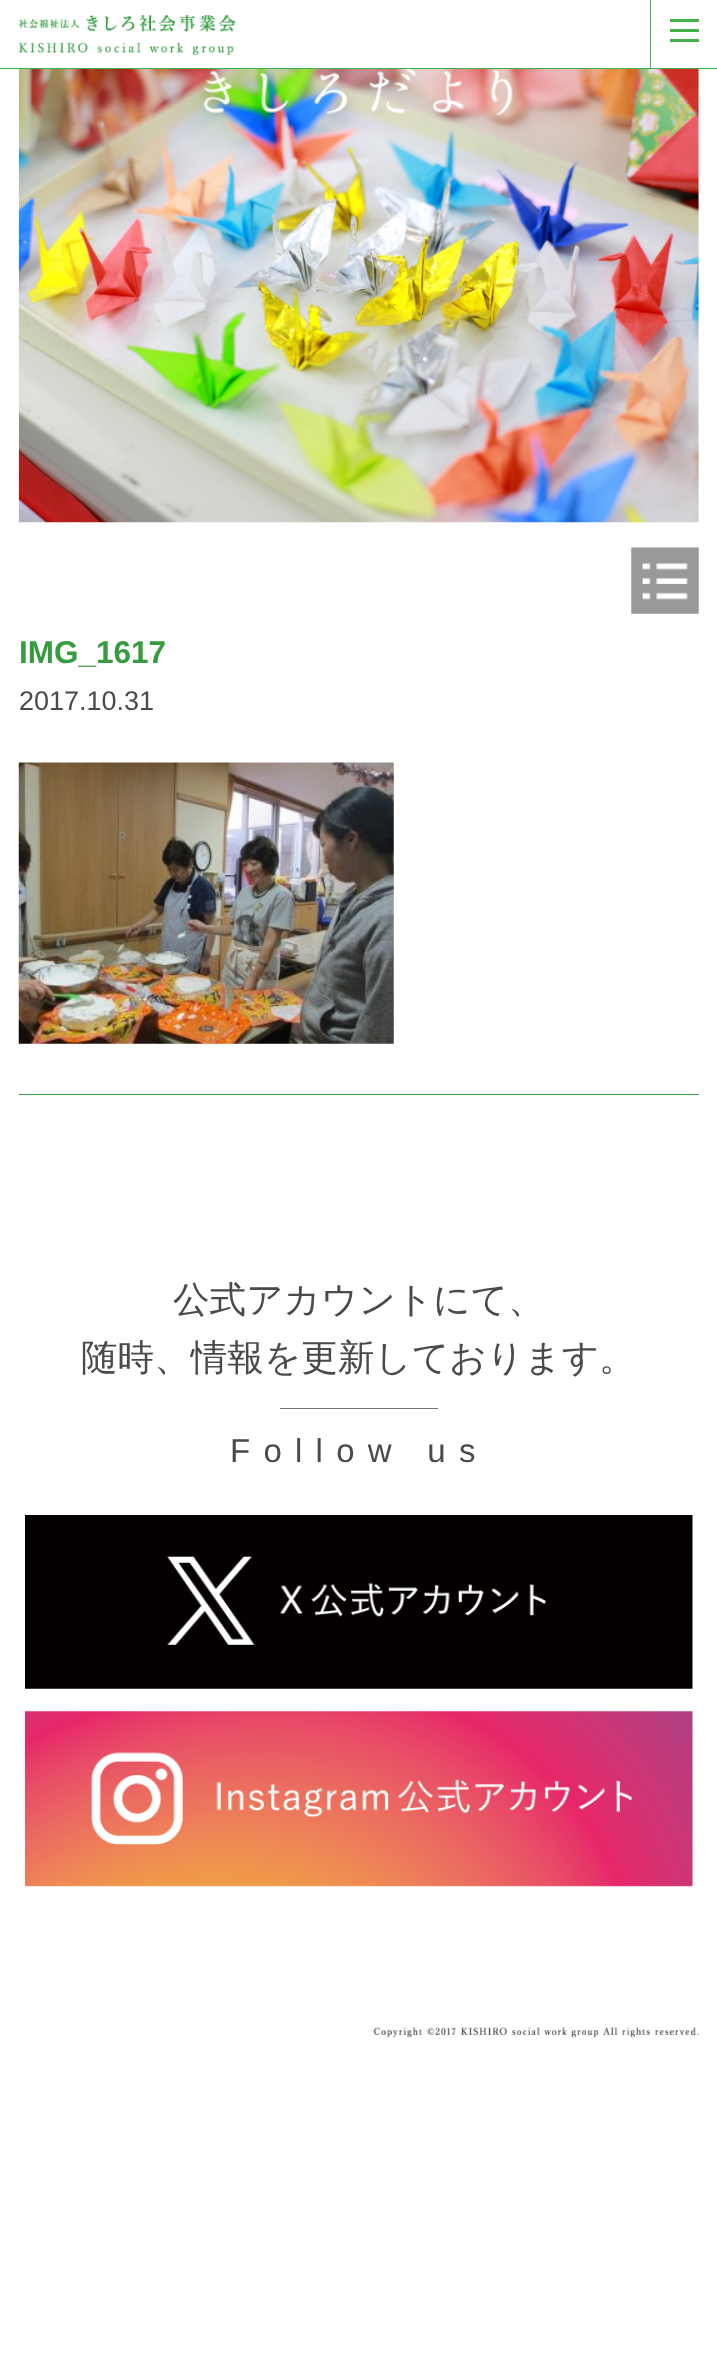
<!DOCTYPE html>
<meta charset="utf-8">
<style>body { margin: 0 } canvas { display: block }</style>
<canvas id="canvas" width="717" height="2376"></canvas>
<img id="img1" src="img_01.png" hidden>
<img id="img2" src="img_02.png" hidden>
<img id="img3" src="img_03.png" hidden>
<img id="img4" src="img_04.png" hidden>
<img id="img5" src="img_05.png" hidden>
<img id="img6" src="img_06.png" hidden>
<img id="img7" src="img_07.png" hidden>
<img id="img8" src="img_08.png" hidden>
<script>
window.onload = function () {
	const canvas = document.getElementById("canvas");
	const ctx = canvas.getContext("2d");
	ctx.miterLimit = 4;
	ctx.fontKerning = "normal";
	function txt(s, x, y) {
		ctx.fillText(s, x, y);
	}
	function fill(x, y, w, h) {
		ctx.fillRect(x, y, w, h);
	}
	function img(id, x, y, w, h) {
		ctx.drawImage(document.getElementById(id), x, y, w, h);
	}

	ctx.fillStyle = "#FFFFFF";
	fill(0, 0, 717, 2376);
	ctx.fillStyle = "#43B149";
	fill(0, 68, 717, 1);
	img("img1", 18, 15, 218, 40);
	fill(650, 0, 1, 68);
	fill(670, 19, 29, 3);
	fill(670, 29, 29, 3);
	fill(670, 39, 29, 3);
	img("img2", 18, 69, 681, 454);
	img("img3", 203, 69, 310, 47);
	img("img4", 631, 547, 68, 67);
	ctx.fillStyle = "#389B3F";
	fill(19, 1094, 680, 1);
	img("img5", 18, 762, 376, 282);
	ctx.fillStyle = "#727171";
	fill(280, 1408, 158, 1);
	img("img6", 25, 1515, 668, 174);
	img("img7", 25, 1711, 668, 176);
	img("img8", 373, 2027, 326, 11);
	ctx.font = "bold 31.5px Liberation Sans";
	ctx.fillStyle = "#389B3F";
	txt("IMG_1617", 19, 663);
	ctx.font = "27px Liberation Sans";
	ctx.fillStyle = "#4C4948";
	txt("2017.10.31", 19, 710);
	ctx.font = "500 36.6px WenQuanYi Zen Hei";
	txt("公式アカウントにて、", 173, 1312);
	txt("随時、情報を更新しております。", 81, 1370);
	ctx.letterSpacing = "13.25px";
	ctx.font = "33px Liberation Sans";
	txt("Follow us", 230, 1462);
};
</script>
